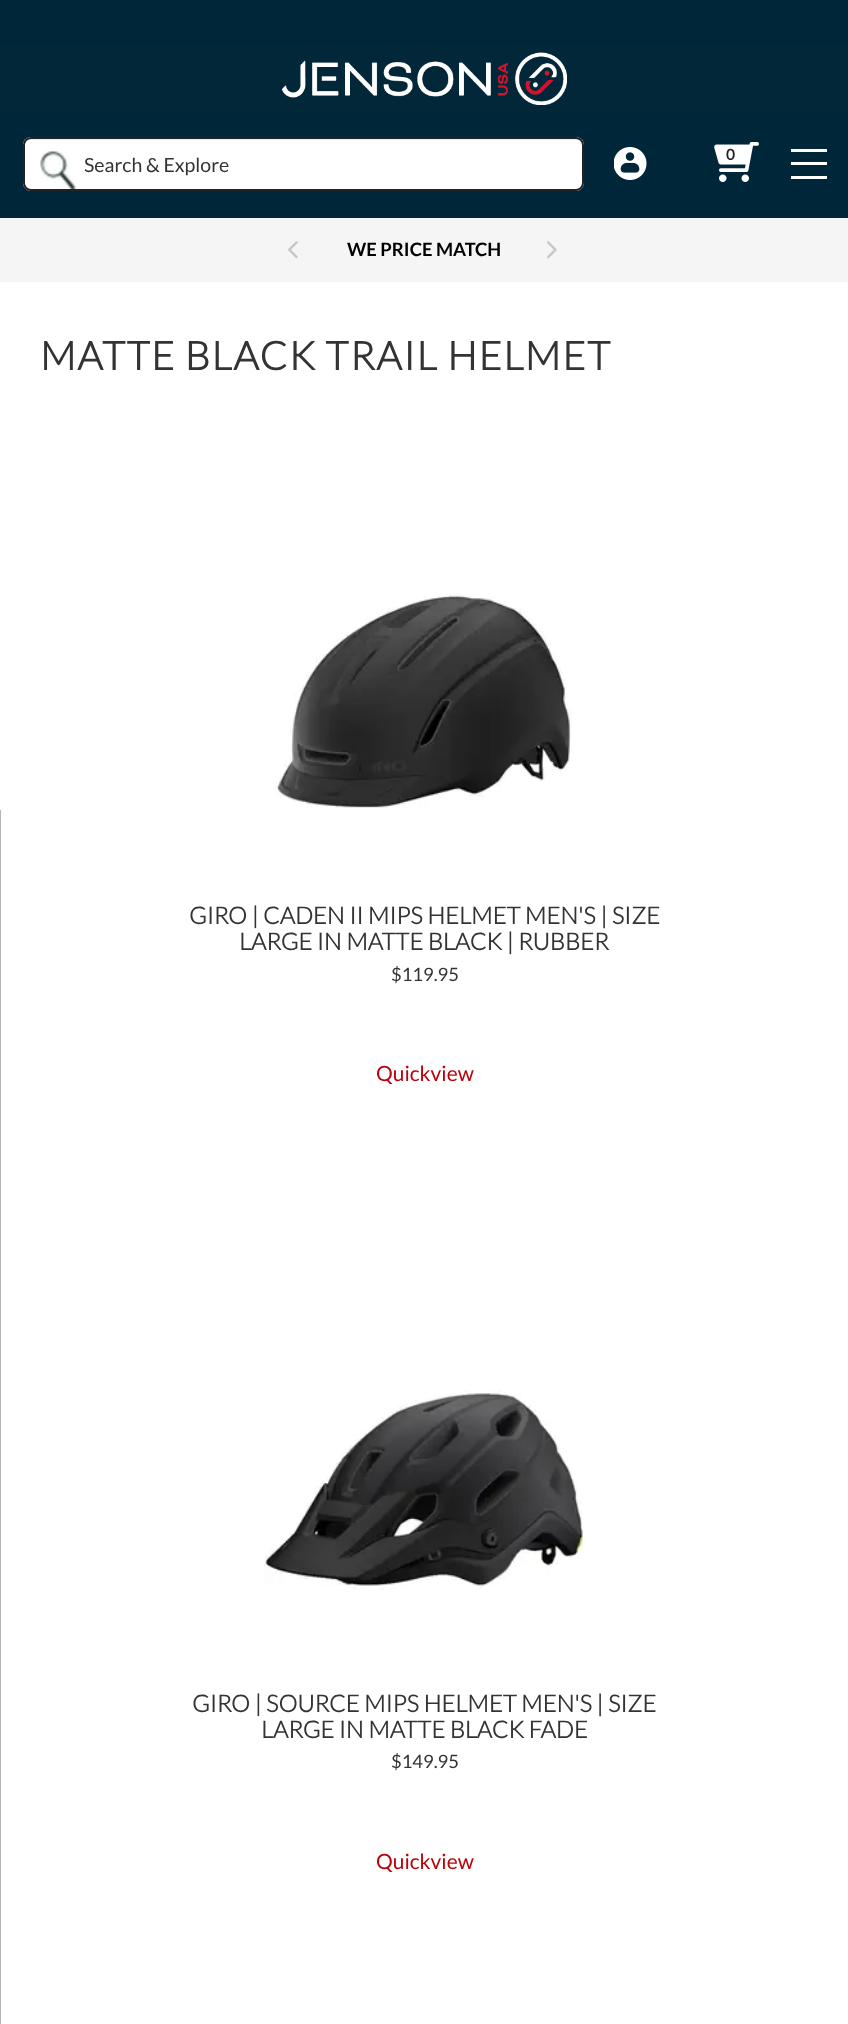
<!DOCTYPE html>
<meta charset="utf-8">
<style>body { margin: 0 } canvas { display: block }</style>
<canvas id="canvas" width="848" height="2024"></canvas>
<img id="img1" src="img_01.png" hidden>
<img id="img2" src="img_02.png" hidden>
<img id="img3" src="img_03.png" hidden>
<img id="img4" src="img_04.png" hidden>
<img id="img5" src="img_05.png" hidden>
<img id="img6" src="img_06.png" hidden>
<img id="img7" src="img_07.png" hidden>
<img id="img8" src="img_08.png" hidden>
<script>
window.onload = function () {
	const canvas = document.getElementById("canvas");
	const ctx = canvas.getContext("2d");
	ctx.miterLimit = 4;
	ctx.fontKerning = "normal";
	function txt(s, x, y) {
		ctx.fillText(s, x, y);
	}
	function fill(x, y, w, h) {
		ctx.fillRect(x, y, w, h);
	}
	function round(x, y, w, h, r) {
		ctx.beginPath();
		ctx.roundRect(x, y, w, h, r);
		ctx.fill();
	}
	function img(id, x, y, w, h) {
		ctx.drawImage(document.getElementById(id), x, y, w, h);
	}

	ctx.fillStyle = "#FFFFFF";
	fill(0, 0, 848, 2024);
	ctx.fillStyle = "#00263A";
	fill(0, 0, 848, 45);
	ctx.fillStyle = "#012739";
	fill(0, 45, 848, 68);
	img("img1", 282, 52, 285, 53);
	ctx.fillStyle = "#00263A";
	fill(0, 113, 848, 105);
	ctx.fillStyle = "#FFFFFF";
	round(23, 137, 561, 54, 8);
	ctx.fillStyle = "#ECECEC";
	ctx.beginPath();
	ctx.moveTo(30, 140);
	ctx.lineTo(576, 140);
	ctx.bezierCurveTo(579, 140, 582, 142, 582, 146);
	ctx.lineTo(582, 144);
	ctx.bezierCurveTo(582, 141, 579, 138, 576, 138);
	ctx.lineTo(30, 138);
	ctx.bezierCurveTo(27, 138, 24, 141, 24, 144);
	ctx.lineTo(24, 146);
	ctx.bezierCurveTo(24, 142, 27, 140, 30, 140);
	ctx.closePath();
	ctx.fill();
	ctx.beginPath();
	ctx.roundRect(24, 138, 559, 52, 7);
	ctx.strokeStyle = "#222222";
	ctx.lineWidth = 2;
	ctx.stroke();
	img("img2", 40, 151, 37, 38);
	img("img3", 614, 147, 33, 33);
	img("img4", 714, 142, 45, 40);
	ctx.fillStyle = "#FFFFFF";
	fill(791, 149, 36, 3);
	fill(791, 162, 36, 3);
	fill(791, 176, 36, 3);
	ctx.fillStyle = "#F5F5F5";
	fill(0, 218, 848, 64);
	img("img5", 288, 241, 10, 18);
	img("img6", 547, 241, 10, 18);
	ctx.fillStyle = "#B5B5B5";
	fill(0, 810, 1, 1214);
	img("img7", 274, 593, 299, 215);
	img("img8", 264, 1390, 320, 200);
	ctx.font = "19.5px Lato";
	ctx.fillStyle = "#333333";
	txt("Search & Explore", 84, 172);
	ctx.font = "bold 15px 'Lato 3'";
	ctx.fillStyle = "#222222";
	txt("0", 726, 160);
	ctx.font = "bold 18.4px Lato";
	ctx.fillStyle = "#000000";
	txt("WE PRICE MATCH", 347, 256);
	ctx.letterSpacing = "1.5px";
	ctx.font = "bold 39.4px 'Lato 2'";
	ctx.fillStyle = "#333333";
	txt("MATTE BLACK TRAIL HELMET", 40, 370);
	ctx.letterSpacing = "0px";
	ctx.font = "bold 23.6px 'Lato 2'";
	txt("GIRO | CADEN II MIPS HELMET MEN'S | SIZE", 189, 924);
	txt("LARGE IN MATTE BLACK | RUBBER", 239, 950);
	ctx.font = "18.4px Lato";
	txt("$119.95", 391, 981);
	ctx.font = "21px Lato";
	ctx.fillStyle = "#BB020A";
	txt("Quickview", 376, 1081);
	ctx.font = "bold 23.6px 'Lato 2'";
	ctx.fillStyle = "#333333";
	txt("GIRO | SOURCE MIPS HELMET MEN'S | SIZE", 192, 1712);
	txt("LARGE IN MATTE BLACK FADE", 261, 1738);
	ctx.font = "18.4px Lato";
	txt("$149.95", 391, 1768);
	ctx.font = "21px Lato";
	ctx.fillStyle = "#BB020A";
	txt("Quickview", 376, 1869);
};
</script>
